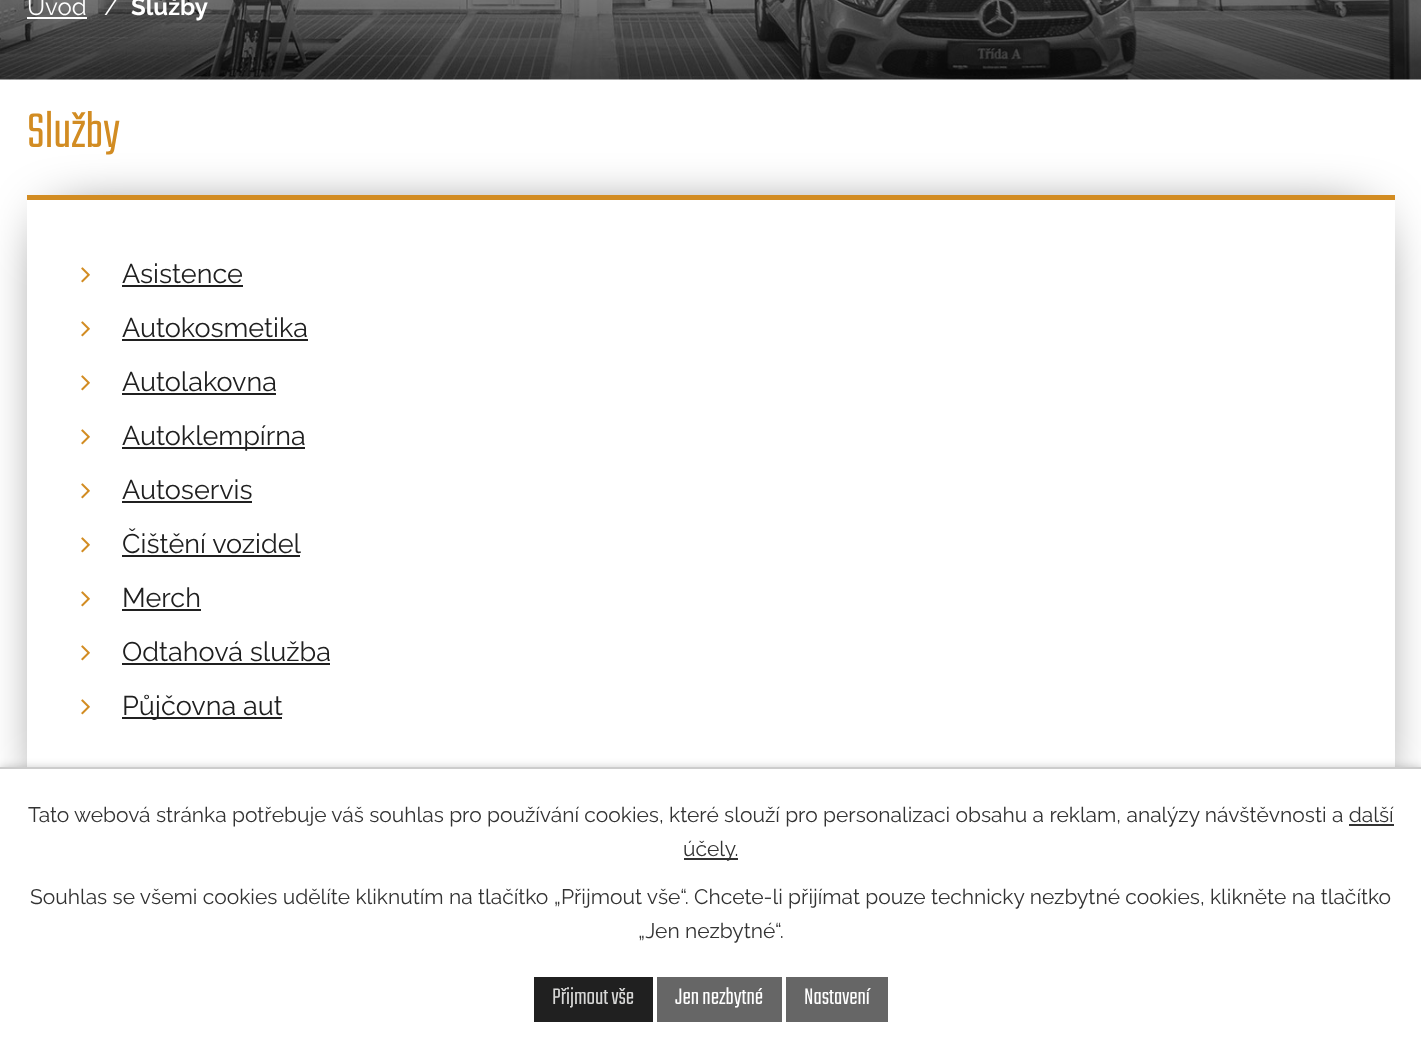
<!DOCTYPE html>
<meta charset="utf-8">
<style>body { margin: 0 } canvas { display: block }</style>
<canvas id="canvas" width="1421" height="1050"></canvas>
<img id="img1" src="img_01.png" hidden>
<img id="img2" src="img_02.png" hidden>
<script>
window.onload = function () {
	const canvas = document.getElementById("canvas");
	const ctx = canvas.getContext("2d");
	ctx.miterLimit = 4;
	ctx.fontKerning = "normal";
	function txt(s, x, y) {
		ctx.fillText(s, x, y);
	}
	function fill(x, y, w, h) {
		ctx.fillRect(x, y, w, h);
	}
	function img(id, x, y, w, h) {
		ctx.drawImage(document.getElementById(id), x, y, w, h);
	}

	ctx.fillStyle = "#FFFFFF";
	fill(0, 0, 1421, 1050);
	img("img1", 0, 0, 1421, 80);
	fill(27, 17, 60, 2);
	ctx.fillStyle = "#000000";
	ctx.filter = "blur(30px)";
	ctx.beginPath();
	ctx.rect(57, 225, 1308, 566);
	ctx.fill();
	ctx.filter = "none";
	ctx.fillStyle = "#FFFFFF";
	fill(27, 200, 1368, 567);
	ctx.fillStyle = "#D28C22";
	fill(27, 195, 1368, 5);
	img("img2", 81, 267, 9, 16);
	ctx.fillStyle = "#202020";
	fill(122, 285, 121, 2);
	img("img2", 81, 321, 9, 16);
	fill(122, 339, 186, 2);
	img("img2", 81, 375, 9, 16);
	fill(122, 393, 154, 2);
	img("img2", 81, 429, 9, 16);
	fill(122, 447, 183, 2);
	img("img2", 81, 483, 9, 16);
	fill(122, 501, 130, 2);
	img("img2", 81, 537, 9, 16);
	fill(122, 555, 178, 2);
	img("img2", 81, 591, 9, 16);
	fill(122, 609, 79, 2);
	img("img2", 81, 645, 9, 16);
	fill(122, 663, 208, 2);
	img("img2", 81, 699, 9, 16);
	fill(122, 717, 160, 2);
	ctx.fillStyle = "rgba(0, 0, 0, 0.2)";
	ctx.filter = "blur(4px)";
	ctx.beginPath();
	ctx.rect(0, 767, 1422, 283);
	ctx.fill();
	ctx.filter = "none";
	ctx.fillStyle = "#FFFFFF";
	fill(0, 769, 1421, 281);
	ctx.fillStyle = "#CCCCCC";
	fill(0, 767, 1421, 2);
	ctx.fillStyle = "#333333";
	fill(1349, 824, 45, 2);
	fill(684, 858, 54, 2);
	ctx.fillStyle = "#202020";
	fill(534, 977, 119, 45);
	ctx.fillStyle = "#666666";
	fill(657, 977, 125, 45);
	fill(786, 977, 102, 45);
	ctx.font = "24px Raleway";
	ctx.fillStyle = "#FFFFFF";
	txt("Úvod", 27, 15);
	txt("/", 104, 15);
	ctx.font = "bold 24px Raleway";
	txt("Služby", 131, 15);
	ctx.font = "300 54px Teko";
	ctx.fillStyle = "#D28C22";
	txt("Služby", 27, 147);
	ctx.font = "27px Raleway";
	ctx.fillStyle = "#202020";
	txt("Asistence", 122, 283);
	txt("Autokosmetika", 122, 337);
	txt("Autolakovna", 122, 391);
	txt("Autoklempírna", 122, 445);
	txt("Autoservis", 122, 499);
	txt("Čištění vozidel", 122, 553);
	txt("Merch", 122, 607);
	txt("Odtahová služba", 122, 661);
	txt("Půjčovna aut", 122, 715);
	ctx.font = "21px Raleway";
	ctx.fillStyle = "#333333";
	txt("Tato webová stránka potřebuje váš souhlas pro používání cookies, které slouží pro personalizaci obsahu a reklam, analýzy návštěvnosti a další", 28, 822);
	txt("účely.", 683, 856);
	txt("Souhlas se všemi cookies udělíte kliknutím na tlačítko „Přijmout vše“. Chcete-li přijímat pouze technicky nezbytné cookies, klikněte na tlačítko", 30, 904);
	txt("„Jen nezbytné“.", 638, 938);
	ctx.font = "300 25px Teko";
	ctx.fillStyle = "#D8D8D7";
	txt("Přijmout vše", 552, 1004);
	ctx.fillStyle = "#FFFFFF";
	txt("Jen nezbytné", 675, 1004);
	txt("Nastavení", 804, 1004);
};
</script>
